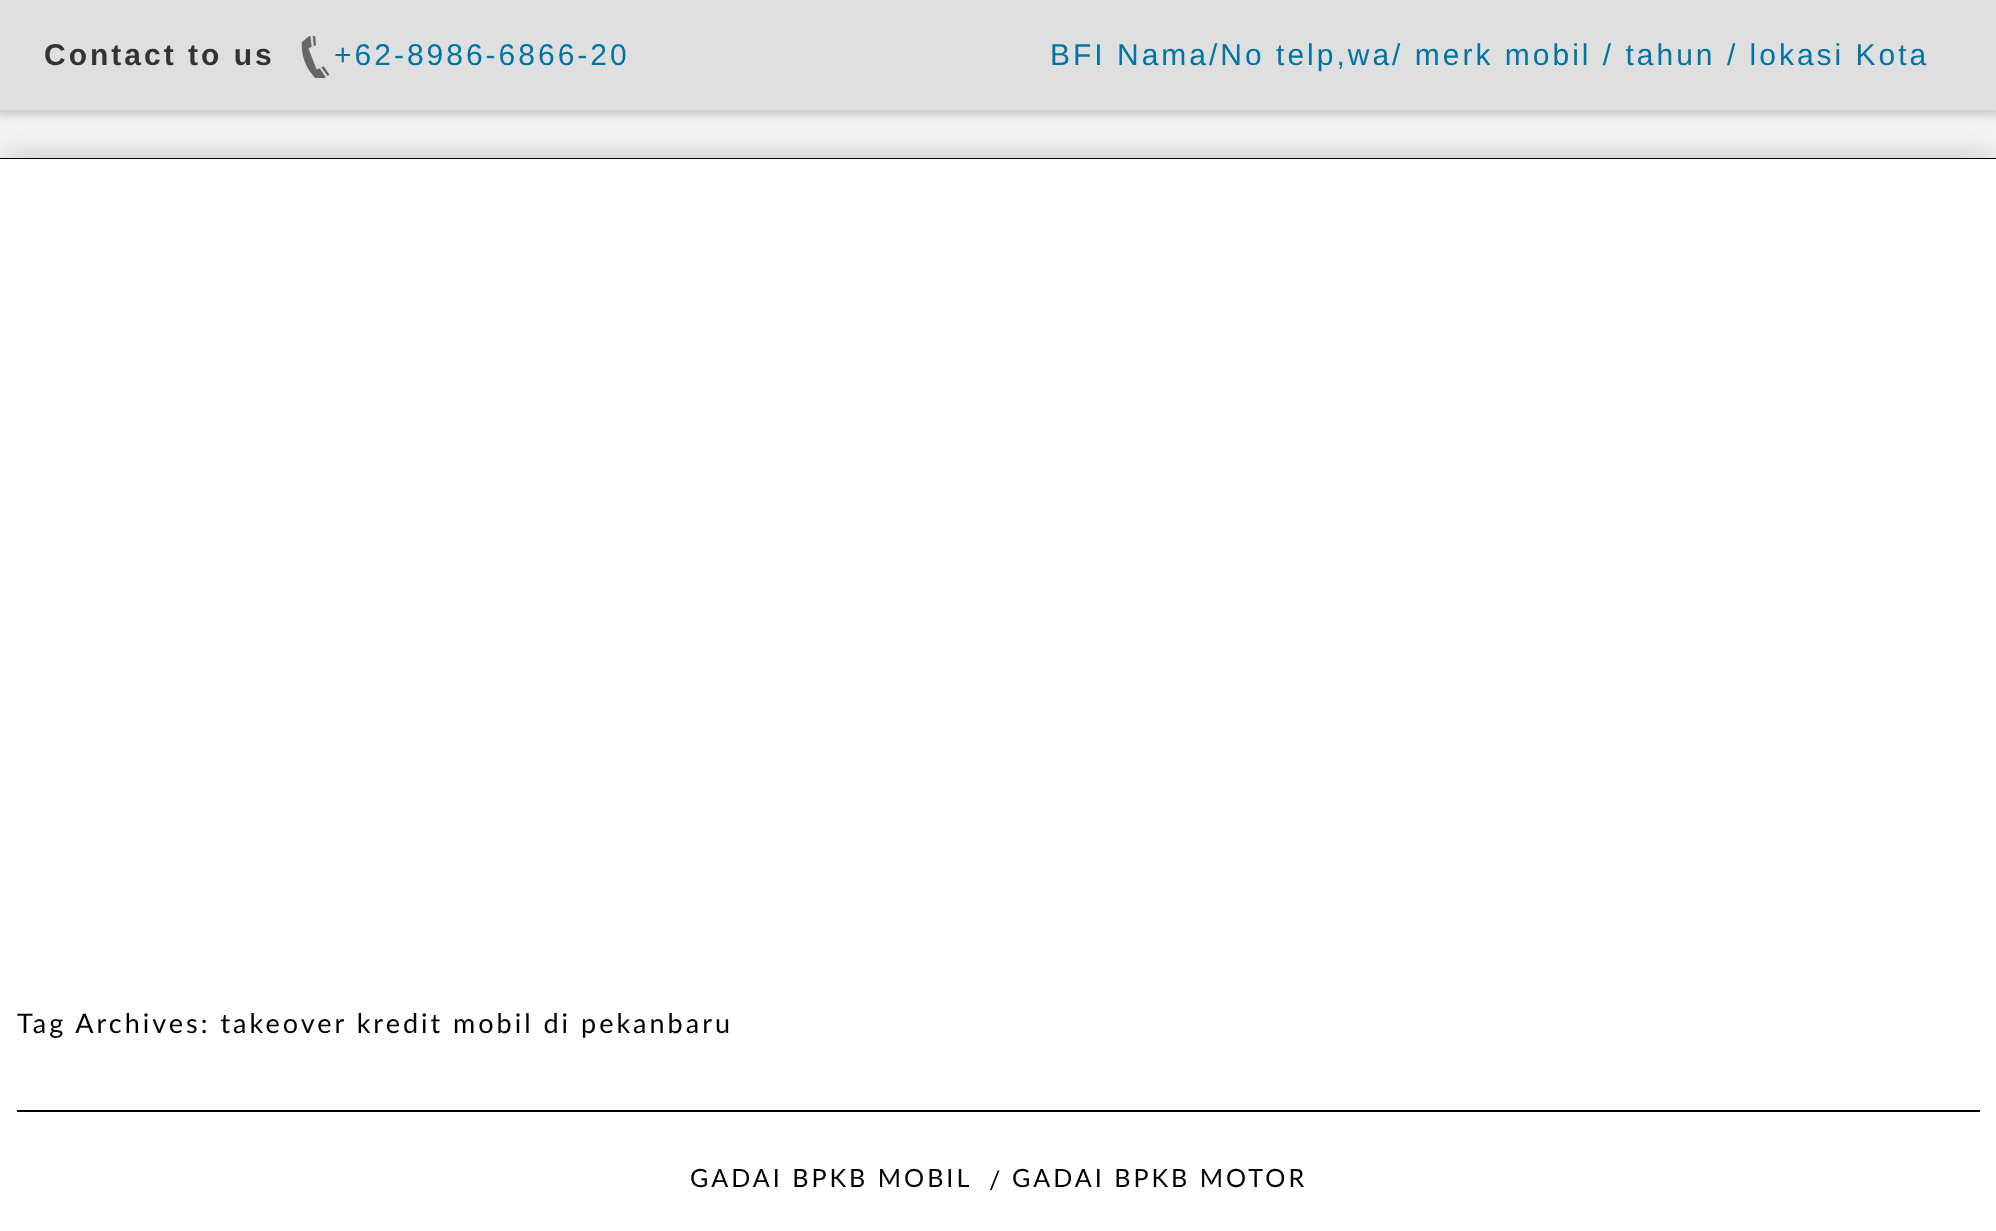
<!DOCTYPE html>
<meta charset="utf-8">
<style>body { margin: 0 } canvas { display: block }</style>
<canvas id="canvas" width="1996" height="1231"></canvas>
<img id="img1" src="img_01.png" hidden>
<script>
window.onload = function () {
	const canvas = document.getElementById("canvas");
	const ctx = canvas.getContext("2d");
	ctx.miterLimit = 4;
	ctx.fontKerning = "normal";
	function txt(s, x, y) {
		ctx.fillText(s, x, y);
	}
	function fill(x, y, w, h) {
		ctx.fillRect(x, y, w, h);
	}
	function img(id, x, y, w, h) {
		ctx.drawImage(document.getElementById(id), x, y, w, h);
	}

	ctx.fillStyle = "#F5F5F5";
	fill(0, 0, 1996, 1231);
	ctx.fillStyle = "#CCCCCC";
	ctx.filter = "blur(4.5px)";
	ctx.beginPath();
	ctx.rect(-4, -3, 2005, 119);
	ctx.fill();
	ctx.filter = "none";
	ctx.fillStyle = "rgba(0, 0, 0, 0.2)";
	ctx.filter = "blur(17px)";
	ctx.beginPath();
	ctx.rect(0, 158, 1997, 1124);
	ctx.fill();
	ctx.filter = "none";
	ctx.fillStyle = "#DFDFDF";
	fill(0, 0, 1996, 110);
	img("img1", 301, 36, 29, 43);
	ctx.fillStyle = "#FFFFFF";
	fill(0, 159, 1996, 1072);
	ctx.fillStyle = "#000000";
	fill(0, 158, 1996, 1);
	fill(17, 1110, 1963, 2);
	ctx.letterSpacing = "3px";
	ctx.font = "bold 30px Liberation Sans";
	ctx.fillStyle = "#333333";
	txt("Contact to us", 44, 65);
	ctx.font = "30px Liberation Sans";
	ctx.fillStyle = "#0074A2";
	txt("+62-8986-6866-20", 334, 65);
	txt("BFI Nama/No telp,wa/ merk mobil / tahun / lokasi Kota", 1050, 65);
	ctx.font = "27px Lato";
	ctx.fillStyle = "#000000";
	txt("Tag Archives: takeover kredit mobil di pekanbaru", 17, 1033);
	ctx.font = "25.1px Lato";
	txt("GADAI BPKB MOBIL", 690, 1187);
	txt("/", 989, 1189);
	txt("GADAI BPKB MOTOR", 1012, 1187);
};
</script>
